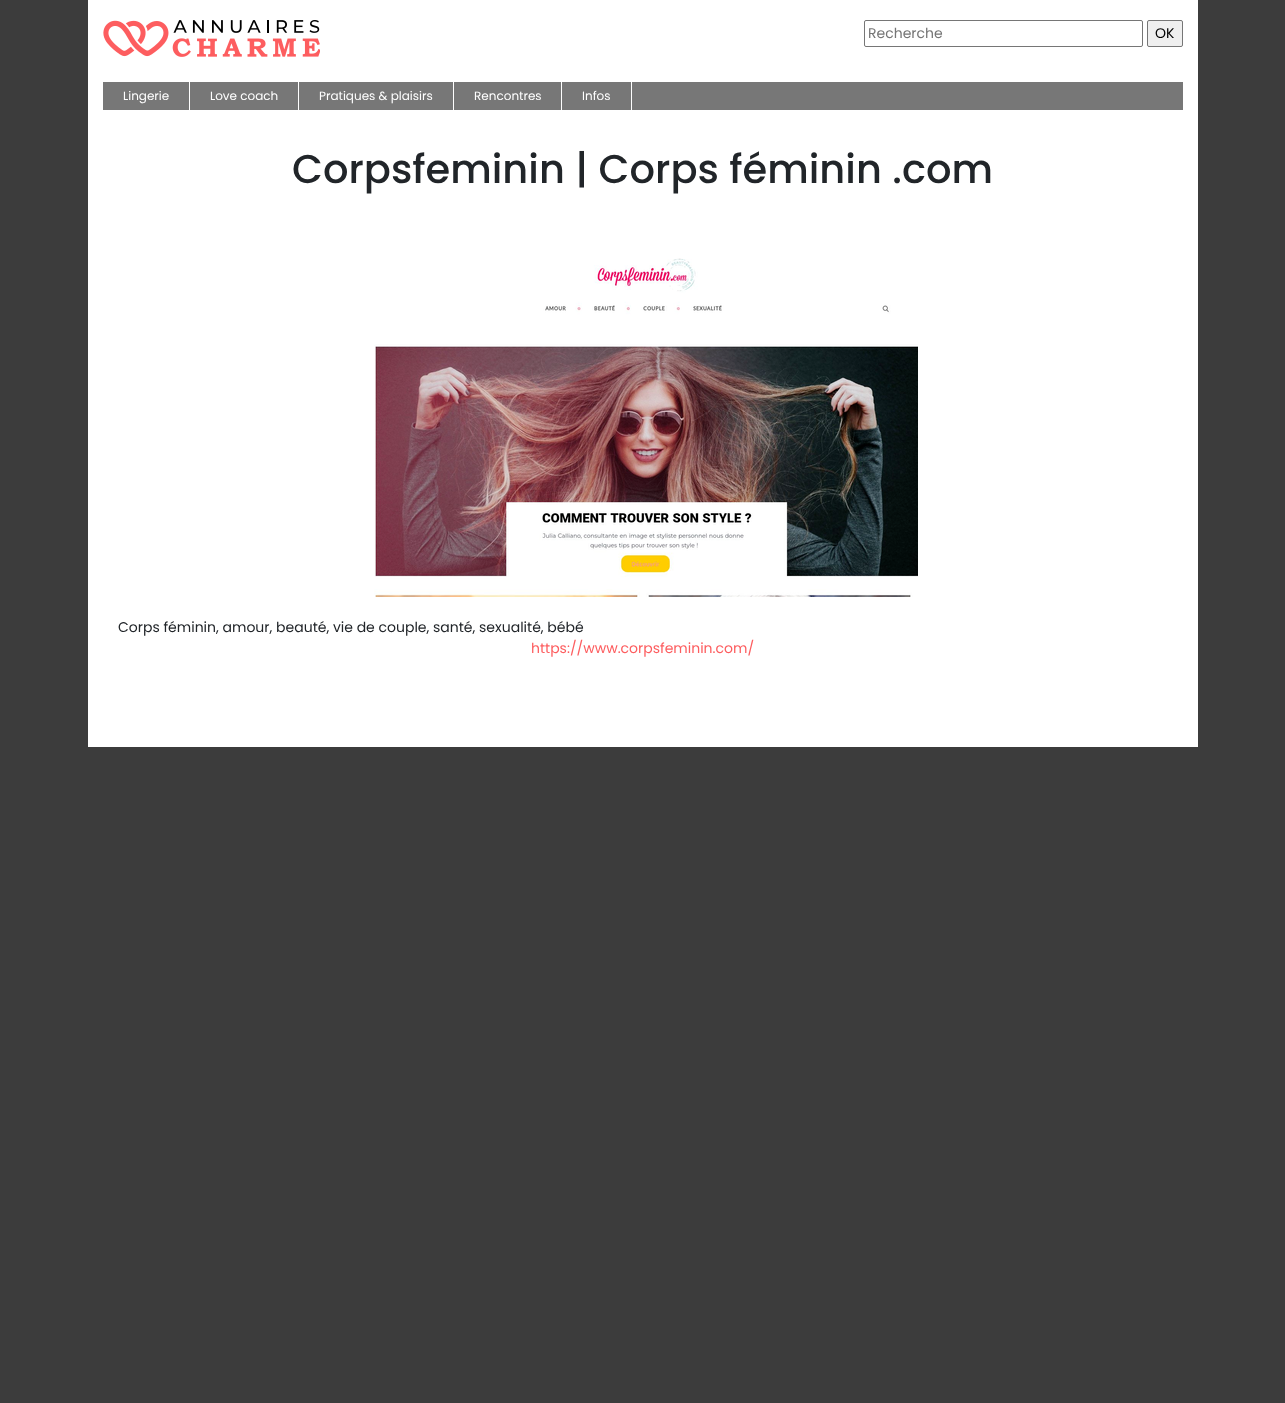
<!DOCTYPE html>
<meta charset="utf-8">
<style>body { margin: 0 } canvas { display: block }</style>
<canvas id="canvas" width="1285" height="1403"></canvas>
<img id="img1" src="img_01.png" hidden>
<img id="img2" src="img_02.png" hidden>
<script>
window.onload = function () {
	const canvas = document.getElementById("canvas");
	const ctx = canvas.getContext("2d");
	ctx.miterLimit = 4;
	ctx.fontKerning = "normal";
	function txt(s, x, y) {
		ctx.fillText(s, x, y);
	}
	function fill(x, y, w, h) {
		ctx.fillRect(x, y, w, h);
	}
	function img(id, x, y, w, h) {
		ctx.drawImage(document.getElementById(id), x, y, w, h);
	}

	ctx.fillStyle = "#3C3C3C";
	fill(0, 0, 1285, 1403);
	ctx.fillStyle = "#FFFFFF";
	fill(88, 0, 1110, 747);
	img("img1", 103, 20, 217, 37);
	ctx.beginPath();
	ctx.roundRect(864.5, 20.5, 278, 26, 1.5);
	ctx.strokeStyle = "#767676";
	ctx.stroke();
	ctx.fillStyle = "#EFEFEF";
	ctx.beginPath();
	ctx.roundRect(1147.5, 20.5, 35, 26, 1.5);
	ctx.fill();
	ctx.stroke();
	ctx.fillStyle = "#777777";
	fill(103, 82, 1080, 28);
	ctx.fillStyle = "#FFFFFF";
	fill(189, 82, 1, 28);
	fill(298, 82, 1, 28);
	fill(453, 82, 1, 28);
	fill(561, 82, 1, 28);
	fill(631, 82, 1, 28);
	img("img2", 374, 258, 544, 339);
	ctx.font = "14px Poppins";
	ctx.fillStyle = "#757575";
	txt("Recherche", 868, 38);
	ctx.fillStyle = "#000000";
	txt("OK", 1155, 38);
	ctx.font = "12px Poppins";
	ctx.fillStyle = "#FFFFFF";
	txt("Lingerie", 123, 100);
	txt("Love coach", 210, 100);
	txt("Pratiques & plaisirs", 319, 100);
	txt("Rencontres", 474, 100);
	txt("Infos", 582, 100);
	ctx.font = "500 40px Poppins";
	ctx.fillStyle = "#212529";
	txt("Corpsfeminin | Corps féminin .com", 292, 183);
	ctx.font = "14px Poppins";
	txt("Corps féminin, amour, beauté, vie de couple, santé, sexualité, bébé", 118, 632);
	ctx.fillStyle = "#FD5D5F";
	txt("https://www.corpsfeminin.com/", 531, 653);
};
</script>
